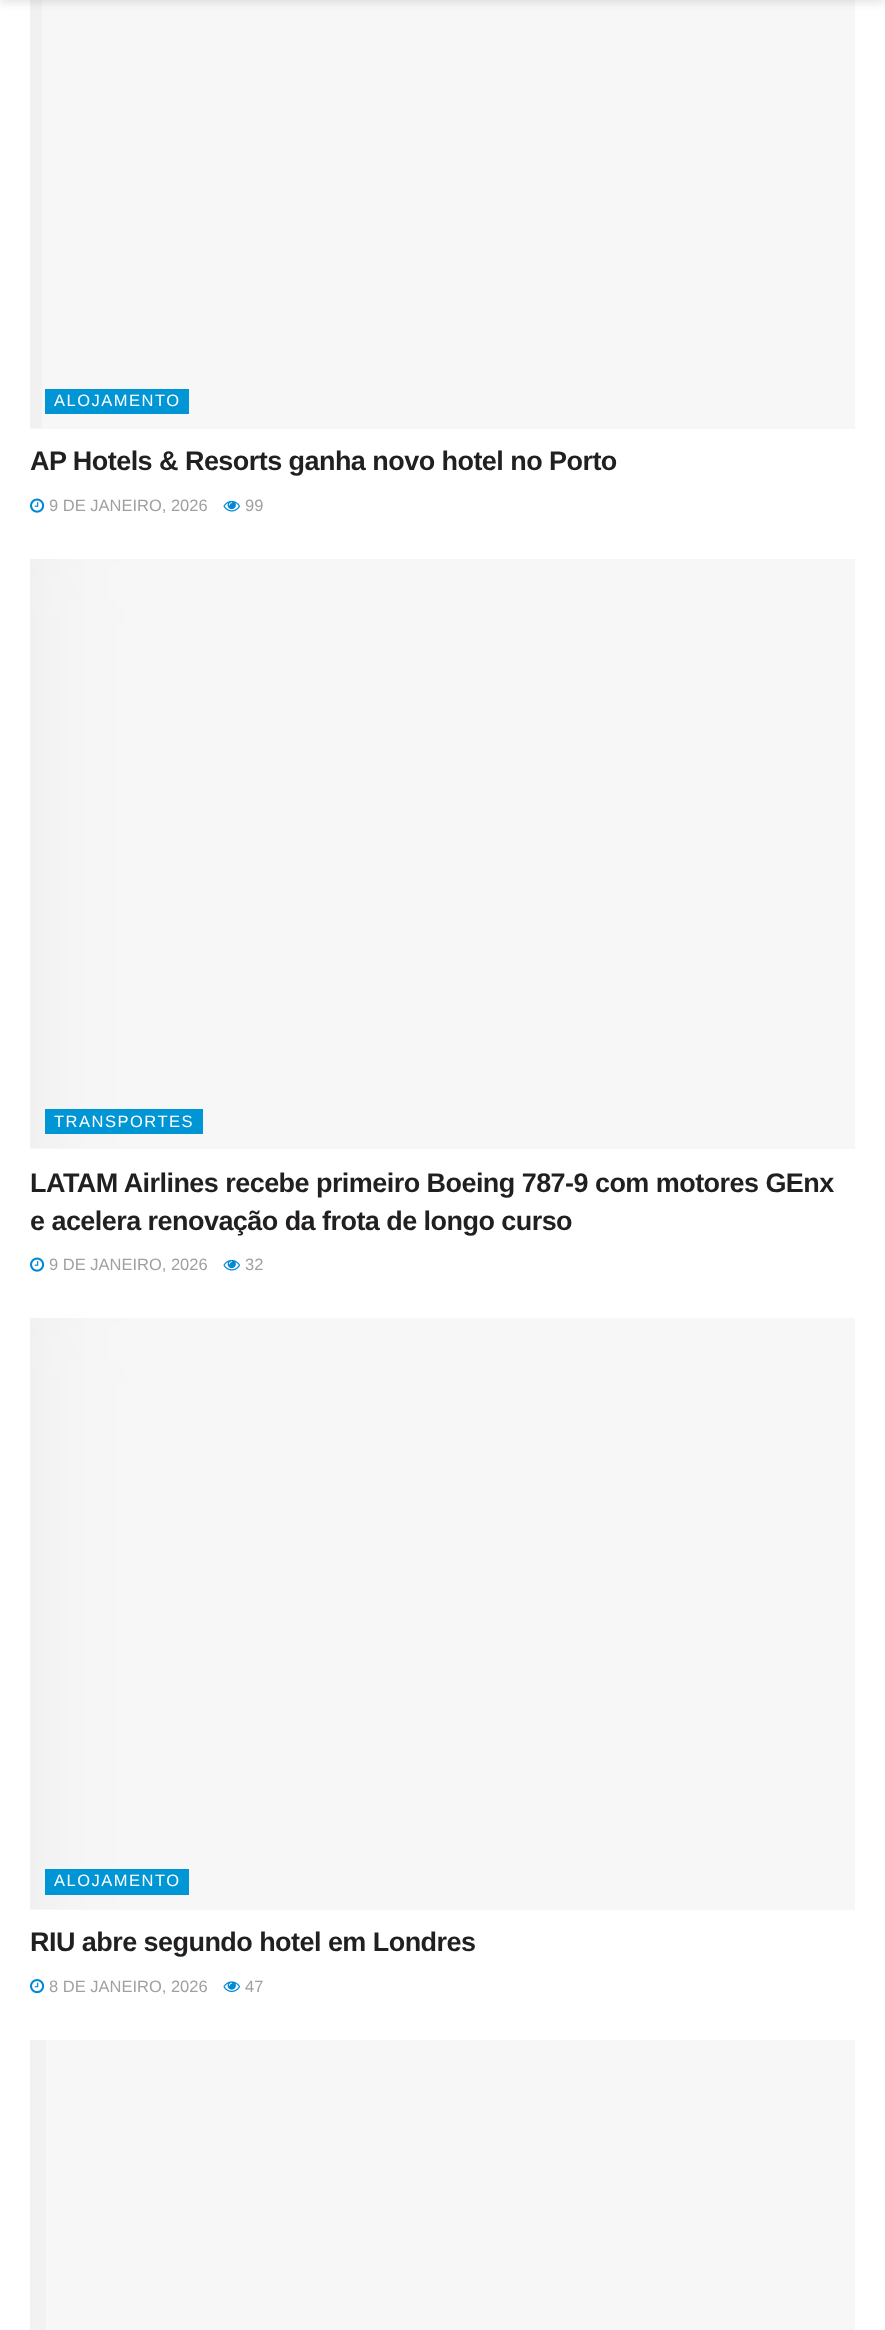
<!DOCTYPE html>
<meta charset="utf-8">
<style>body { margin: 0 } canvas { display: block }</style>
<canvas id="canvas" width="885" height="2330"></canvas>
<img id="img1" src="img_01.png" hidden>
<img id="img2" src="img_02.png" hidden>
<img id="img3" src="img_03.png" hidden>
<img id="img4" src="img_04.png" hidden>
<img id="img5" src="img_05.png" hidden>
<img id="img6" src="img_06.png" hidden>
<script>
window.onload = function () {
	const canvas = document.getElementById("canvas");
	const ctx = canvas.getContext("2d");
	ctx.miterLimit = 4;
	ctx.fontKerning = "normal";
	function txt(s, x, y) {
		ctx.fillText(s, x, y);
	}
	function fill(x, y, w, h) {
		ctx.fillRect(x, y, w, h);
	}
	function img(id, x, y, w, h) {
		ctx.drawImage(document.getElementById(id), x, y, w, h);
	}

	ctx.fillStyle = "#FFFFFF";
	fill(0, 0, 885, 2330);
	ctx.fillStyle = "#F7F7F7";
	fill(30, 0, 825, 429);
	ctx.fillStyle = "#F1F1F1";
	fill(30, 0, 12, 428);
	ctx.fillStyle = "rgba(0, 0, 0, 0.1)";
	ctx.filter = "blur(4.5px)";
	ctx.beginPath();
	ctx.rect(0, -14, 885, 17);
	ctx.fill();
	ctx.filter = "none";
	ctx.fillStyle = "#0096D6";
	fill(45, 389, 144, 25);
	img("img1", 30, 498, 15, 15);
	img("img2", 223, 500, 17, 12);
	ctx.fillStyle = "#F7F7F7";
	fill(30, 1148, 825, 1);
	img("img3", 30, 559, 825, 589);
	ctx.fillStyle = "#0096D6";
	fill(45, 1109, 158, 25);
	img("img1", 30, 1257, 15, 15);
	img("img2", 223, 1259, 17, 12);
	ctx.fillStyle = "#F7F7F7";
	fill(30, 1909, 825, 1);
	img("img4", 30, 1318, 825, 591);
	ctx.fillStyle = "#0096D6";
	fill(45, 1869, 144, 26);
	img("img5", 30, 1979, 15, 15);
	img("img6", 223, 1981, 17, 11);
	ctx.fillStyle = "#F7F7F7";
	fill(46, 2040, 809, 290);
	ctx.fillStyle = "#F2F2F2";
	fill(30, 2040, 16, 290);
	ctx.letterSpacing = "1.5px";
	ctx.font = "16.5px Liberation Sans";
	ctx.fillStyle = "#FFFFFF";
	txt("ALOJAMENTO", 54, 406);
	ctx.letterSpacing = "-0.55px";
	ctx.font = "bold 27px Liberation Sans";
	ctx.fillStyle = "#211F1F";
	txt("AP Hotels & Resorts ganha novo hotel no Porto", 30, 470);
	ctx.letterSpacing = "0px";
	ctx.font = "16.5px Liberation Sans";
	ctx.fillStyle = "#A0A0A0";
	txt("9 DE JANEIRO, 2026", 49, 511);
	txt("99", 245, 511);
	ctx.letterSpacing = "1.5px";
	ctx.fillStyle = "#FFFFFF";
	txt("TRANSPORTES", 54, 1127);
	ctx.letterSpacing = "-0.55px";
	ctx.font = "bold 27px Liberation Sans";
	ctx.fillStyle = "#211F1F";
	txt("LATAM Airlines recebe primeiro Boeing 787-9 com motores GEnx", 30, 1192);
	txt("e acelera renovação da frota de longo curso", 30, 1230);
	ctx.letterSpacing = "0px";
	ctx.font = "16.5px Liberation Sans";
	ctx.fillStyle = "#A0A0A0";
	txt("9 DE JANEIRO, 2026", 49, 1270);
	txt("32", 245, 1270);
	ctx.letterSpacing = "1.5px";
	ctx.fillStyle = "#FFFFFF";
	txt("ALOJAMENTO", 54, 1886);
	ctx.letterSpacing = "-0.55px";
	ctx.font = "bold 27px Liberation Sans";
	ctx.fillStyle = "#211F1F";
	txt("RIU abre segundo hotel em Londres", 30, 1951);
	ctx.letterSpacing = "0px";
	ctx.font = "16.5px Liberation Sans";
	ctx.fillStyle = "#A0A0A0";
	txt("8 DE JANEIRO, 2026", 49, 1992);
	txt("47", 245, 1992);
};
</script>
